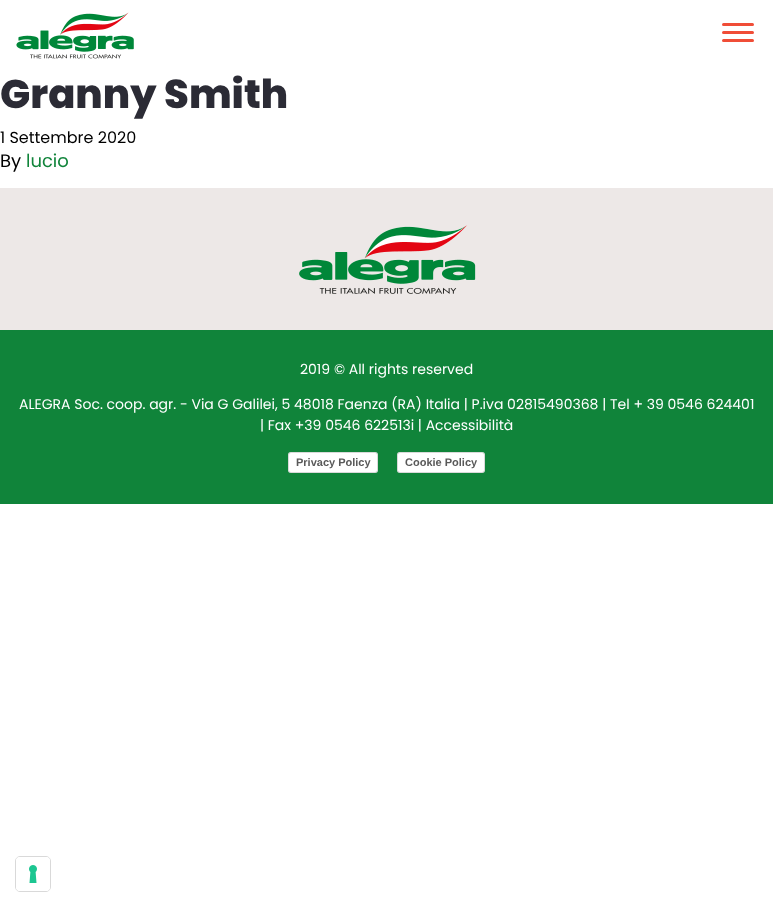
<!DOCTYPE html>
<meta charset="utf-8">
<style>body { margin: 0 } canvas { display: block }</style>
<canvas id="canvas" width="773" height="907"></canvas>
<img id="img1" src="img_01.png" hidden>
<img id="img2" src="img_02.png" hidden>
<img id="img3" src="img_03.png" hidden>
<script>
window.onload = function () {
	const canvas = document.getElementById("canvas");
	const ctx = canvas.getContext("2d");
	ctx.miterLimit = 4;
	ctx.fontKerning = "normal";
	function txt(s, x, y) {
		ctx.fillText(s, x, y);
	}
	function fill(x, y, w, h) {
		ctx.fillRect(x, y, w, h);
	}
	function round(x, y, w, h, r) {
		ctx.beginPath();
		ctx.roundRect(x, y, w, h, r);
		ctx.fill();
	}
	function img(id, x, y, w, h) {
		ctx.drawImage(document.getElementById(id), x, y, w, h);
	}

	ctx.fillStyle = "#FFFFFF";
	fill(0, 0, 773, 907);
	img("img1", 16, 12, 118, 47);
	ctx.fillStyle = "#F04D37";
	round(722, 31, 32, 3, 1.5);
	round(722, 23, 32, 3, 1.5);
	round(722, 39, 32, 3, 1.5);
	ctx.fillStyle = "#EDE8E7";
	fill(0, 188, 773, 142);
	img("img2", 299, 225, 177, 69);
	ctx.fillStyle = "#10843A";
	fill(0, 330, 773, 174);
	ctx.fillStyle = "rgba(0, 0, 0, 0.15)";
	ctx.filter = "blur(0.5px)";
	ctx.beginPath();
	ctx.roundRect(289, 454, 88, 19, 2);
	ctx.fill();
	ctx.filter = "none";
	ctx.fillStyle = "#FFFFFF";
	round(288, 452, 90, 21, 3);
	ctx.beginPath();
	ctx.roundRect(288.5, 452.5, 89, 20, 2.5);
	ctx.strokeStyle = "rgba(0, 0, 0, 0.15)";
	ctx.stroke();
	ctx.fillStyle = "rgba(0, 0, 0, 0.15)";
	ctx.filter = "blur(0.5px)";
	ctx.beginPath();
	ctx.roundRect(398, 454, 86, 19, 2);
	ctx.fill();
	ctx.filter = "none";
	ctx.fillStyle = "#FFFFFF";
	round(397, 452, 88, 21, 3);
	ctx.beginPath();
	ctx.roundRect(397.5, 452.5, 87, 20, 2.5);
	ctx.stroke();
	ctx.beginPath();
	ctx.roundRect(15.5, 856.5, 35, 35, 4.5);
	ctx.strokeStyle = "#D9D9D9";
	ctx.stroke();
	round(16, 857, 34, 34, 4);
	img("img3", 29, 865, 8, 18);
	ctx.font = "800 40px Poppins";
	ctx.fillStyle = "#2B2B35";
	txt("Granny Smith", 0, 108);
	ctx.font = "16px Poppins";
	ctx.fillStyle = "#000000";
	txt("1 Settembre 2020", 0, 143);
	ctx.font = "18px Poppins";
	txt("By", 0, 167);
	ctx.fillStyle = "#10843A";
	txt("lucio", 26, 167);
	ctx.font = "14px Poppins";
	ctx.fillStyle = "#FFFFFF";
	txt("2019 © All rights reserved", 300, 374);
	txt("ALEGRA Soc. coop. agr. - Via G Galilei, 5 48018 Faenza (RA) Italia | P.iva 02815490368 | Tel + 39 0546 624401", 19, 409);
	txt("| Fax +39 0546 622513i | Accessibilità", 260, 430);
	ctx.font = "bold 11px Liberation Sans";
	ctx.fillStyle = "#595959";
	txt("Privacy Policy", 296, 466);
	txt("Cookie Policy", 405, 466);
};
</script>
